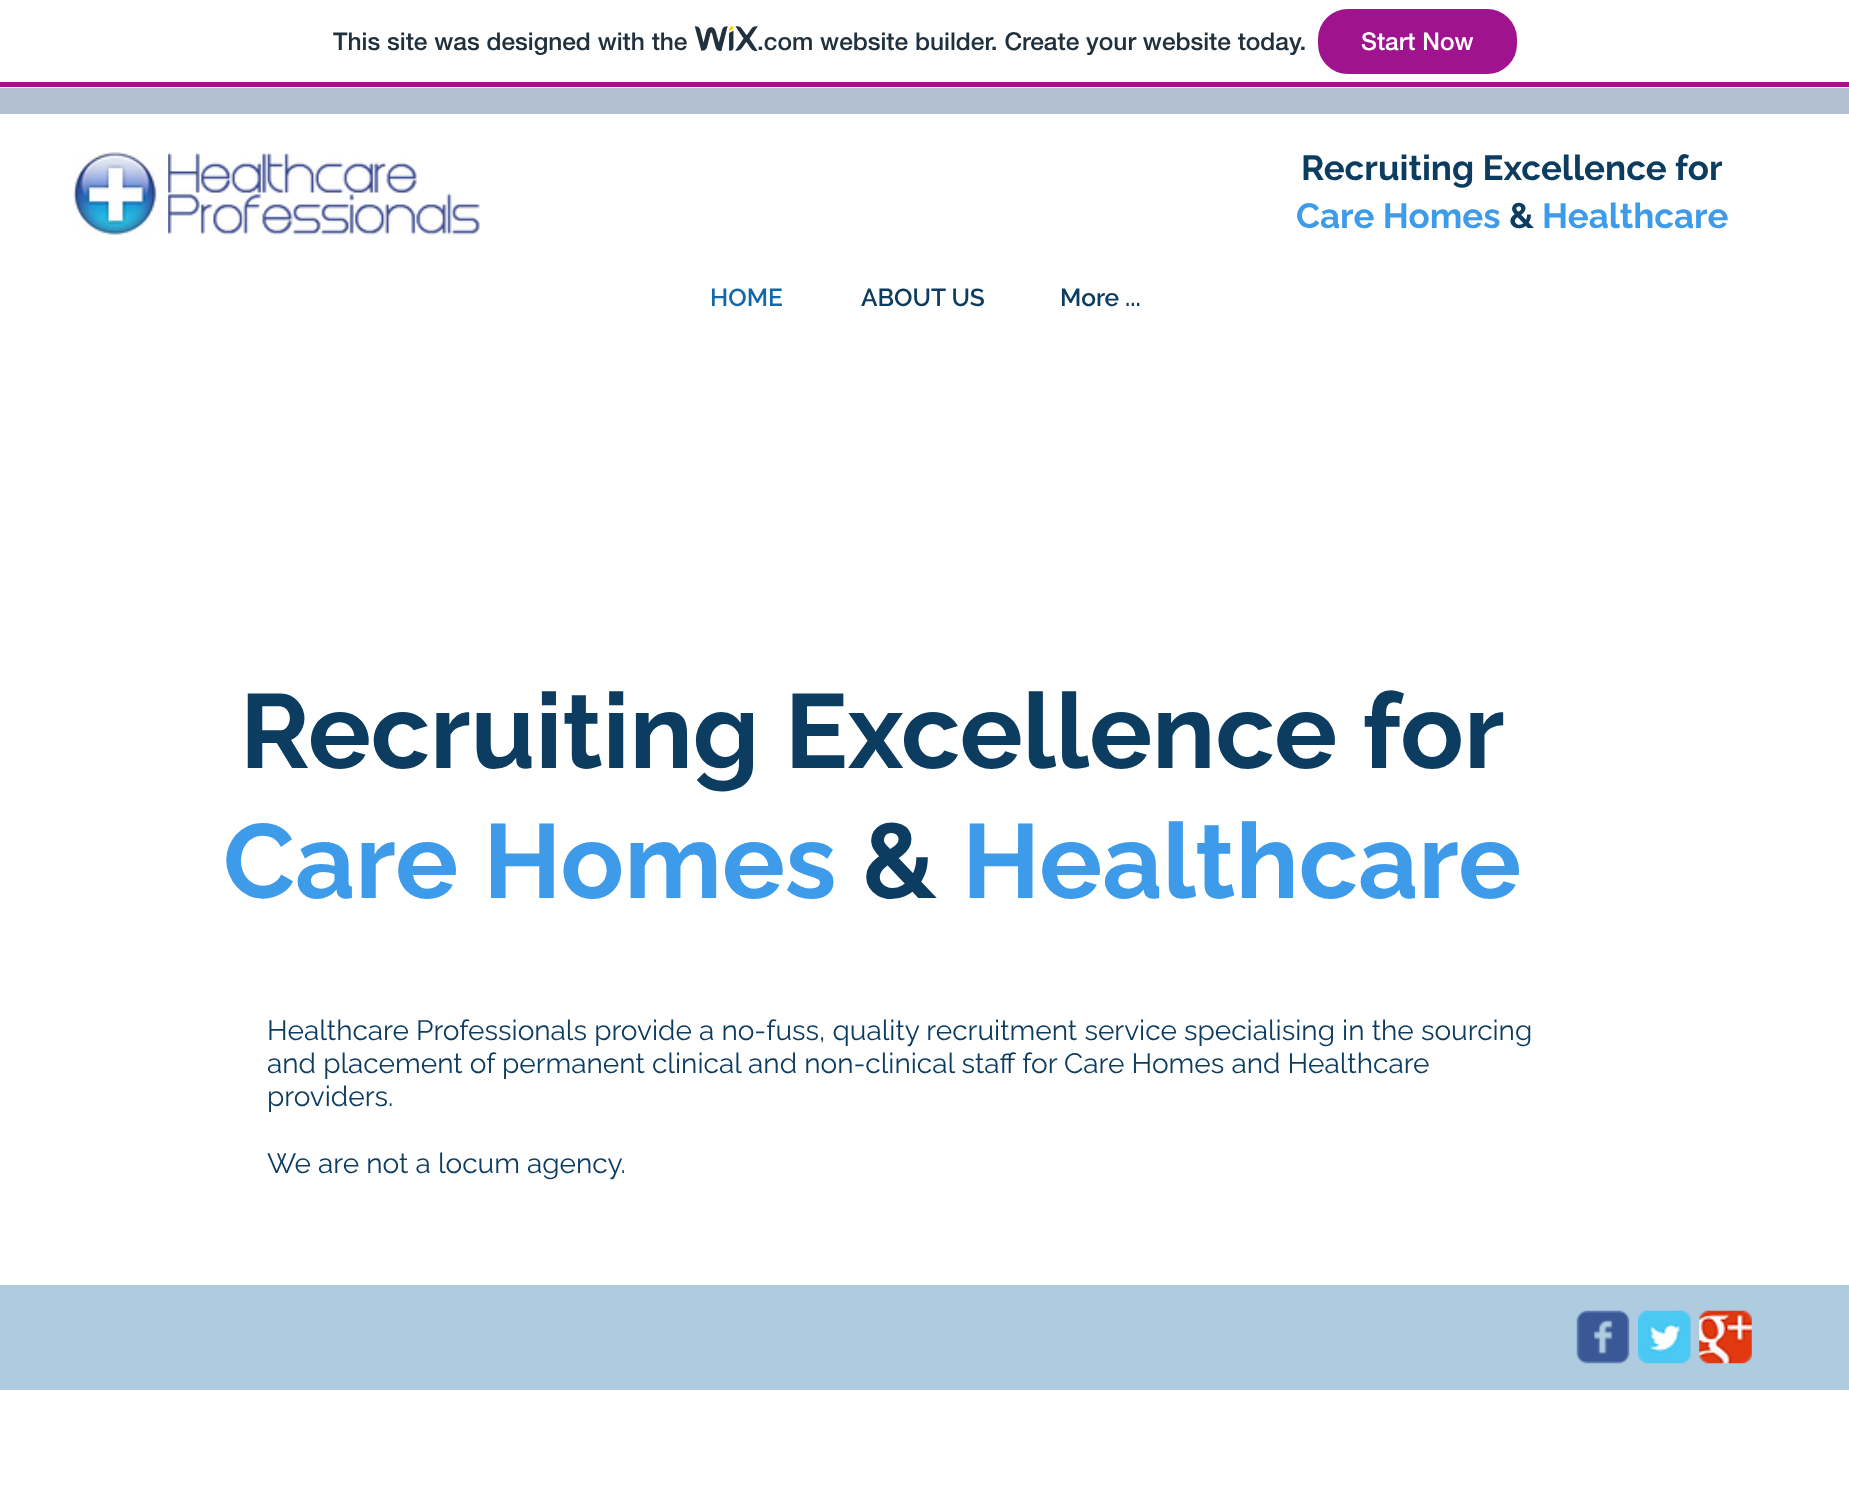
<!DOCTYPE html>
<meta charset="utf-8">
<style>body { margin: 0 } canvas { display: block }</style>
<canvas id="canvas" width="1849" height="1490"></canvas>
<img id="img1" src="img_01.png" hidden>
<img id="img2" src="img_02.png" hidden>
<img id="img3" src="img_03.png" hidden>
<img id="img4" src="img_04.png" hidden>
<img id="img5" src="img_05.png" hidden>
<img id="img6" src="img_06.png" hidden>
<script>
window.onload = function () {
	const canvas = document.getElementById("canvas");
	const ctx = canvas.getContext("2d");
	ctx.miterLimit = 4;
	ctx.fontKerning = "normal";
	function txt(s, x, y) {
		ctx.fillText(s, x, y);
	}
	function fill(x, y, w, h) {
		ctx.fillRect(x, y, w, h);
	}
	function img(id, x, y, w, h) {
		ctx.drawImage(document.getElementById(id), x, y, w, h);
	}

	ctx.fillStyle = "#FFFFFF";
	fill(0, 0, 1849, 1490);
	ctx.fillStyle = "#A0138E";
	fill(0, 82, 1849, 5);
	img("img1", 695, 26, 63, 26);
	ctx.beginPath();
	ctx.roundRect(1319, 10, 197, 63, 29);
	ctx.fill();
	ctx.strokeStyle = "#A0138E";
	ctx.lineWidth = 2;
	ctx.stroke();
	ctx.fillStyle = "#B3C0D3";
	fill(0, 88, 1849, 26);
	img("img2", 73, 152, 95, 83);
	img("img3", 168, 153, 312, 82);
	ctx.fillStyle = "#AFCBE0";
	fill(0, 1285, 1849, 105);
	img("img4", 1576, 1310, 54, 54);
	img("img5", 1638, 1310, 53, 54);
	img("img6", 1699, 1310, 53, 54);
	ctx.font = "500 24.5px 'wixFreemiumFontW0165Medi'";
	ctx.fillStyle = "#20303C";
	txt("This site was designed with the", 333, 50);
	txt(".com website builder. Create your website today.", 757, 50);
	ctx.fillStyle = "#FFFFFF";
	txt("Start Now", 1361, 50);
	ctx.font = "bold 35px Raleway";
	ctx.fillStyle = "#0C3C60";
	txt("Recruiting Excellence for", 1301, 180);
	ctx.fillStyle = "#3D9BE9";
	txt("Care Homes", 1296, 228);
	ctx.fillStyle = "#0C3C60";
	txt("&", 1509, 228);
	ctx.fillStyle = "#3D9BE9";
	txt("Healthcare", 1542, 228);
	ctx.font = "600 24.5px Raleway";
	ctx.fillStyle = "#1468A8";
	txt("HOME", 710, 306);
	ctx.fillStyle = "#0C3C60";
	txt("ABOUT US", 861, 306);
	txt("More ...", 1060, 306);
	ctx.font = "bold 105px Raleway";
	txt("Recruiting Excellence for", 240, 768);
	ctx.fillStyle = "#3D9BE9";
	txt("Care Homes", 223, 898);
	ctx.fillStyle = "#0C3C60";
	txt("&", 862, 898);
	ctx.fillStyle = "#3D9BE9";
	txt("Healthcare", 962, 898);
	ctx.font = "28px Raleway";
	ctx.fillStyle = "#0C3C60";
	txt("Healthcare Professionals provide a no-fuss, quality recruitment service specialising in the sourcing", 267, 1040);
	txt("and placement of permanent clinical and non-clinical staff for Care Homes and Healthcare", 267, 1073);
	txt("providers.", 267, 1106);
	txt("We are not a locum agency.", 267, 1173);
};
</script>
